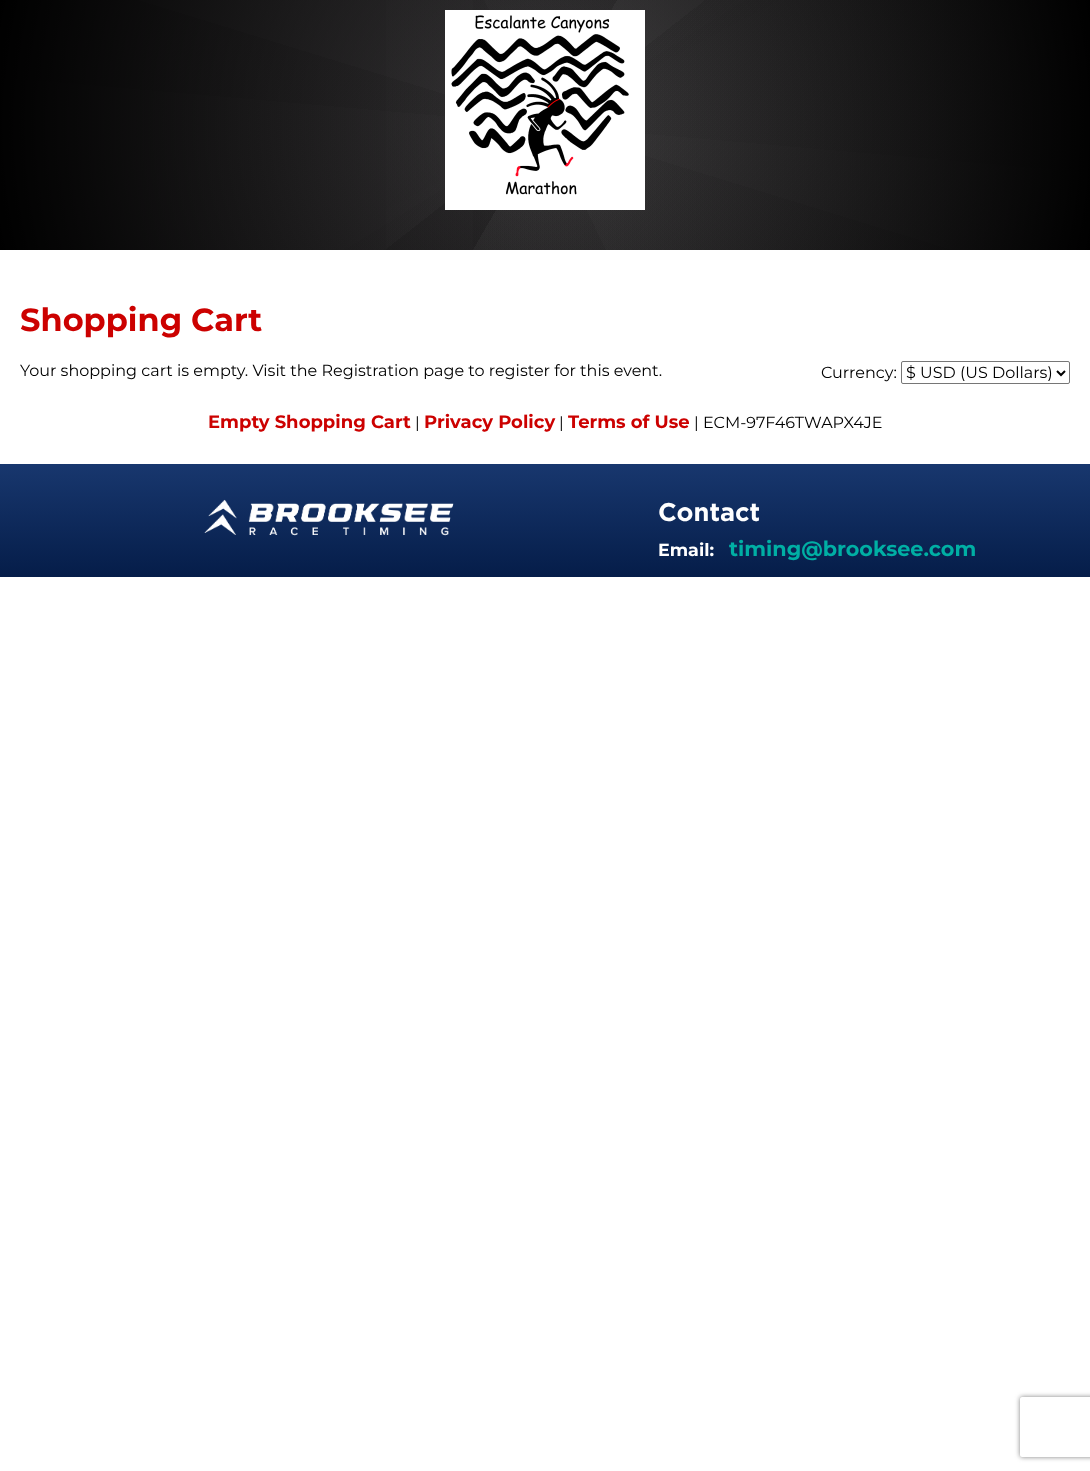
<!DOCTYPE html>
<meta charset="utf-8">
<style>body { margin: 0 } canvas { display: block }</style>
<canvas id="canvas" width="1090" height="1471"></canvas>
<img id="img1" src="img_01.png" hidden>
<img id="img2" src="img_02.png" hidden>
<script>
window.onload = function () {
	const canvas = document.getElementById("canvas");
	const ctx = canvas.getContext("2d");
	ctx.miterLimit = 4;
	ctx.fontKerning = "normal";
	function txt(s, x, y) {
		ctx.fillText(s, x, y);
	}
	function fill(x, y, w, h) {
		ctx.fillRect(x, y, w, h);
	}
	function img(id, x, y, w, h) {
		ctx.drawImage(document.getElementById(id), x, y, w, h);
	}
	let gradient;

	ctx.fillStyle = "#FFFFFF";
	fill(0, 0, 1090, 1471);
	gradient = ctx.createLinearGradient(530, 296, 560, -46);
	gradient.addColorStop(0, "#191719");
	gradient.addColorStop(0.5, "#191719");
	gradient.addColorStop(0.5, "#161416");
	gradient.addColorStop(1, "#161416");
	ctx.fillStyle = gradient;
	fill(0, 0, 1090, 250);
	gradient = ctx.createLinearGradient(477, 378, 613, -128);
	gradient.addColorStop(0, "rgba(225, 225, 225, 0.05)");
	gradient.addColorStop(0.5, "rgba(225, 225, 225, 0.05)");
	gradient.addColorStop(0.5, "rgba(228, 228, 228, 0.05)");
	gradient.addColorStop(1, "rgba(228, 228, 228, 0.05)");
	ctx.fillStyle = gradient;
	fill(0, 0, 1090, 250);
	gradient = ctx.createLinearGradient(278, -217, 812, 467);
	gradient.addColorStop(0, "rgba(168, 168, 168, 0.05)");
	gradient.addColorStop(0.5, "rgba(168, 168, 168, 0.05)");
	gradient.addColorStop(0.5, "rgba(32, 32, 32, 0.05)");
	gradient.addColorStop(1, "rgba(32, 32, 32, 0.05)");
	ctx.fillStyle = gradient;
	fill(0, 0, 704, 250);
	gradient = ctx.createLinearGradient(336, -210, 754, 460);
	gradient.addColorStop(0, "rgba(237, 237, 237, 0.05)");
	gradient.addColorStop(0.5, "rgba(237, 237, 237, 0.05)");
	gradient.addColorStop(0.5, "rgba(211, 211, 211, 0.05)");
	gradient.addColorStop(1, "rgba(211, 211, 211, 0.05)");
	ctx.fillStyle = gradient;
	fill(0, 0, 1090, 250);
	gradient = ctx.createLinearGradient(717, 448, 373, -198);
	gradient.addColorStop(0, "rgba(97, 97, 97, 0.05)");
	gradient.addColorStop(0.5, "rgba(97, 97, 97, 0.05)");
	gradient.addColorStop(0.5, "rgba(85, 85, 85, 0.05)");
	gradient.addColorStop(1, "rgba(85, 85, 85, 0.05)");
	ctx.fillStyle = gradient;
	fill(386, 0, 704, 250);
	gradient = ctx.createLinearGradient(463, 392, 627, -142);
	gradient.addColorStop(0, "rgba(57, 57, 57, 0.05)");
	gradient.addColorStop(0.5, "rgba(57, 57, 57, 0.05)");
	gradient.addColorStop(0.5, "rgba(128, 128, 128, 0.05)");
	gradient.addColorStop(1, "rgba(128, 128, 128, 0.05)");
	ctx.fillStyle = gradient;
	fill(140, 0, 950, 250);
	gradient = ctx.createLinearGradient(55, 364, 1035, -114);
	gradient.addColorStop(0, "rgba(54, 54, 54, 0.05)");
	gradient.addColorStop(0.5, "rgba(54, 54, 54, 0.05)");
	gradient.addColorStop(0.5, "rgba(132, 132, 132, 0.05)");
	gradient.addColorStop(1, "rgba(132, 132, 132, 0.05)");
	ctx.fillStyle = gradient;
	fill(484, 0, 606, 250);
	gradient = ctx.createLinearGradient(1008, 392, 82, -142);
	gradient.addColorStop(0, "rgba(198, 198, 198, 0.05)");
	gradient.addColorStop(0.5, "rgba(198, 198, 198, 0.05)");
	gradient.addColorStop(0.5, "rgba(11, 11, 11, 0.05)");
	gradient.addColorStop(1, "rgba(11, 11, 11, 0.05)");
	ctx.fillStyle = gradient;
	fill(473, 0, 617, 250);
	gradient = ctx.createRadialGradient(545, 125, 0, 545, 125, 559);
	gradient.addColorStop(0, "rgba(0, 0, 0, 0)");
	gradient.addColorStop(1, "#000000");
	ctx.fillStyle = gradient;
	fill(0, 0, 1090, 250);
	img("img1", 445, 10, 200, 200);
	ctx.beginPath();
	ctx.roundRect(901.5, 361.5, 168, 22, 1.5);
	ctx.strokeStyle = "#767676";
	ctx.stroke();
	ctx.beginPath();
	ctx.moveTo(1057, 371);
	ctx.lineTo(1061, 375);
	ctx.lineTo(1065, 371);
	ctx.strokeStyle = "#000000";
	ctx.lineWidth = 2;
	ctx.stroke();
	gradient = ctx.createLinearGradient(545, 577, 545, 464);
	gradient.addColorStop(0, "#051D49");
	gradient.addColorStop(1, "#18376E");
	ctx.fillStyle = gradient;
	fill(0, 464, 1090, 113);
	img("img2", 204, 499, 250, 37);
	ctx.save();
	ctx.beginPath();
	ctx.moveTo(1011, 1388);
	ctx.lineTo(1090, 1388);
	ctx.lineTo(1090, 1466);
	ctx.lineTo(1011, 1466);
	ctx.closePath();
	ctx.moveTo(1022, 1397);
	ctx.lineTo(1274, 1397);
	ctx.bezierCurveTo(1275, 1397, 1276, 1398, 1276, 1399);
	ctx.lineTo(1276, 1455);
	ctx.bezierCurveTo(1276, 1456, 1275, 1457, 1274, 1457);
	ctx.lineTo(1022, 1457);
	ctx.bezierCurveTo(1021, 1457, 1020, 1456, 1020, 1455);
	ctx.lineTo(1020, 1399);
	ctx.bezierCurveTo(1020, 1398, 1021, 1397, 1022, 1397);
	ctx.closePath();
	ctx.clip("evenodd");
	ctx.fillStyle = "#808080";
	ctx.filter = "blur(2.5px)";
	ctx.beginPath();
	ctx.roundRect(1020, 1397, 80, 60, 2);
	ctx.fill();
	ctx.filter = "none";
	ctx.restore();
	ctx.font = "bold 32px Montserrat";
	ctx.fillStyle = "#CC0100";
	txt("Shopping Cart", 20, 331);
	ctx.font = "16px Montserrat";
	ctx.fillStyle = "#000000";
	txt("Your shopping cart is empty. Visit the Registration page to register for this event.", 20, 376);
	txt("Currency:", 821, 378);
	txt("$ USD (US Dollars)", 906, 378);
	ctx.font = "bold 18px Montserrat";
	ctx.fillStyle = "#CC0100";
	txt("Empty Shopping Cart", 208, 428);
	ctx.font = "16px Montserrat";
	ctx.fillStyle = "#000000";
	txt("|", 415, 428);
	ctx.font = "bold 18px Montserrat";
	ctx.fillStyle = "#CC0100";
	txt("Privacy Policy", 424, 428);
	ctx.font = "16px Montserrat";
	ctx.fillStyle = "#000000";
	txt("|", 559, 428);
	ctx.font = "bold 18px Montserrat";
	ctx.fillStyle = "#CC0100";
	txt("Terms of Use", 568, 428);
	ctx.font = "16px Montserrat";
	ctx.fillStyle = "#000000";
	txt("| ECM-97F46TWAPX4JE", 694, 428);
	ctx.font = "bold 25.5px Gotham";
	ctx.fillStyle = "#FFFFFF";
	txt("Contact", 658, 521);
	ctx.font = "bold 17.5px Montserrat";
	txt("Email:", 658, 556);
	ctx.font = "bold 20.75px Montserrat";
	ctx.fillStyle = "#00AFA4";
	txt("timing@brooksee.com", 729, 556);
};
</script>
